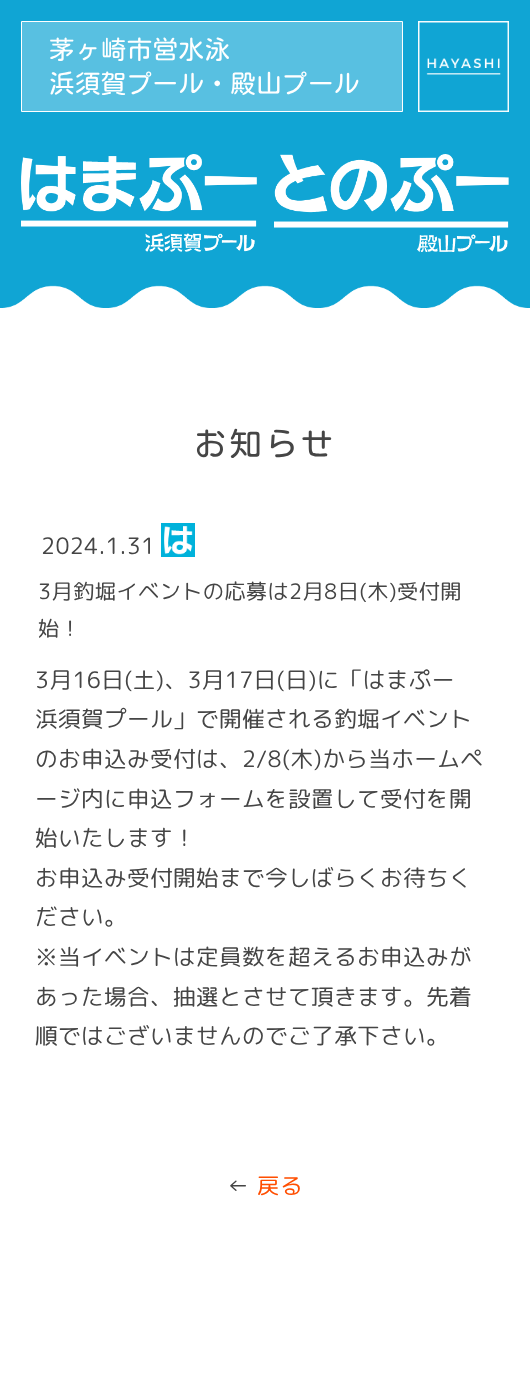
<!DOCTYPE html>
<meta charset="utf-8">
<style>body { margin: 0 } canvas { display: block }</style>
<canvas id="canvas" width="530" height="1374"></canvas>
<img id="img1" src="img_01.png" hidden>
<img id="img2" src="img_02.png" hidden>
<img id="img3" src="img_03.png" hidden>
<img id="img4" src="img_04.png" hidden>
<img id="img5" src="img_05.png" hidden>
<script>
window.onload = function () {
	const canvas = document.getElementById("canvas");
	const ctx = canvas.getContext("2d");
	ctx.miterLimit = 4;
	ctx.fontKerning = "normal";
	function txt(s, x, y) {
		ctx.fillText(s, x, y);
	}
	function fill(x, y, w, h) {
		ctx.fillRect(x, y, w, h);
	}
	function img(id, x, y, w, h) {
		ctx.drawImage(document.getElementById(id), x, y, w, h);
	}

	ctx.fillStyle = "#FFFFFF";
	fill(0, 0, 530, 1374);
	img("img1", 0, 0, 530, 308);
	ctx.fillStyle = "#58C0E1";
	ctx.beginPath();
	ctx.rect(21.5, 21.5, 381, 90);
	ctx.fill();
	ctx.strokeStyle = "#FFFFFF";
	ctx.stroke();
	img("img2", 418, 21, 91, 91);
	img("img3", 21, 154, 236, 98);
	img("img4", 274, 154, 235, 98);
	img("img5", 161, 523, 34, 34);
	ctx.letterSpacing = "0.4px";
	ctx.font = "25.5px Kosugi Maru";
	ctx.fillStyle = "#FFFFFF";
	txt("茅ヶ崎市営水泳", 49, 59);
	txt("浜須賀プール・殿山プール", 49, 93);
	ctx.letterSpacing = "3px";
	ctx.font = "32.5px Kosugi Maru";
	ctx.fillStyle = "#454545";
	txt("お知らせ", 194, 456);
	ctx.letterSpacing = "0.4px";
	ctx.font = "22.6px 'Rounded Mplus 1c'";
	txt("2024.1.31", 41, 554);
	ctx.font = "21.2px 'Rounded Mplus 1c'";
	txt("3月釣堀イベントの応募は2月8日(木)受付開", 38, 599);
	txt("始！", 38, 636);
	ctx.font = "22.6px 'Rounded Mplus 1c'";
	txt("3月16日(土)、3月17日(日)に「はまぷー", 35, 688);
	txt("浜須賀プール」で開催される釣堀イベント", 35, 727);
	txt("のお申込み受付は、2/8(木)から当ホームペ", 35, 767);
	txt("ージ内に申込フォームを設置して受付を開", 35, 807);
	txt("始いたします！", 35, 846);
	txt("お申込み受付開始まで今しばらくお待ちく", 35, 886);
	txt("ださい。", 35, 925);
	txt("※当イベントは定員数を超えるお申込みが", 35, 965);
	txt("あった場合、抽選とさせて頂きます。先着", 35, 1005);
	txt("順ではございませんのでご了承下さい。", 35, 1044);
	txt("←", 227, 1194);
	ctx.fillStyle = "#FF4E00";
	txt("戻る", 257, 1194);
};
</script>
